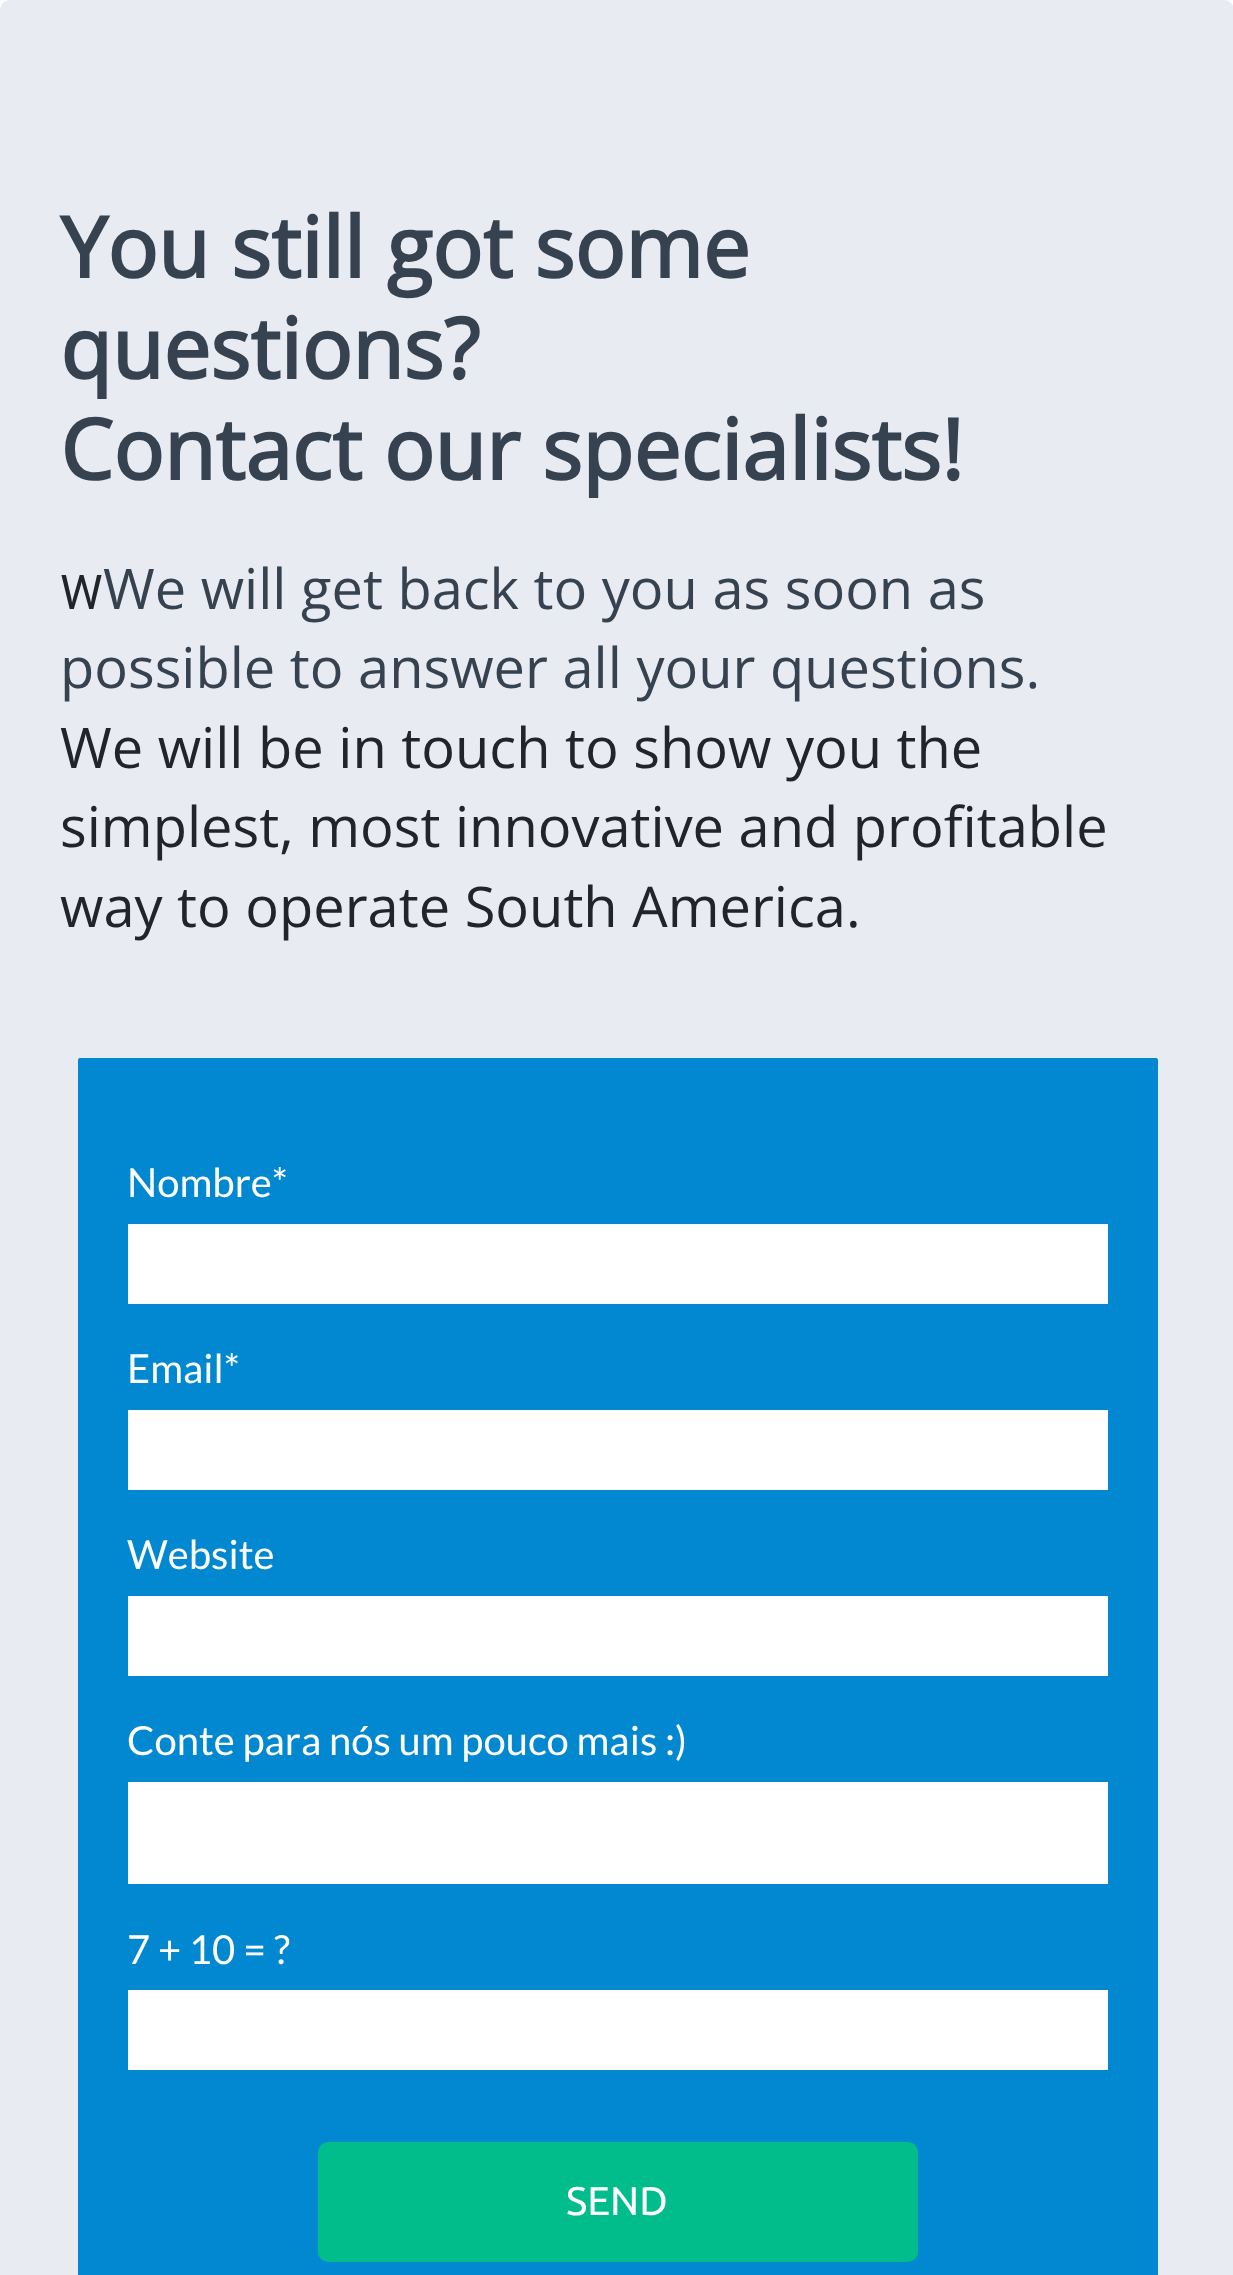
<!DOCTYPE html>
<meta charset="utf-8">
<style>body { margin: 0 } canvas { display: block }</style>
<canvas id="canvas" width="1233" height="2275"></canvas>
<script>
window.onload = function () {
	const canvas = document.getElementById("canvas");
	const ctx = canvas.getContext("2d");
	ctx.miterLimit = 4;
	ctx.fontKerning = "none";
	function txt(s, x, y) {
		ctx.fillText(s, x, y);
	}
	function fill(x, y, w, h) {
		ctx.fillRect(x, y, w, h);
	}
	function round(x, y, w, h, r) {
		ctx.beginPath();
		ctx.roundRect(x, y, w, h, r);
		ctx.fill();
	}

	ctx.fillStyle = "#FFFFFF";
	fill(0, 0, 1233, 2275);
	ctx.fillStyle = "#E8EBF1";
	round(0, 0, 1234, 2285, 10);
	ctx.fillStyle = "#0288D1";
	round(78, 1058, 1080, 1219, 2);
	ctx.fillStyle = "#FFFFFF";
	fill(128, 1224, 980, 80);
	fill(128, 1410, 980, 80);
	fill(128, 1596, 980, 80);
	fill(128, 1782, 980, 102);
	fill(128, 1990, 980, 80);
	ctx.fillStyle = "#01BC8B";
	round(318, 2142, 600, 120, 10);
	ctx.font = "bold 84px Open Sans";
	ctx.fillStyle = "#364250";
	txt("You still got some", 60, 278);
	txt("questions?", 60, 379);
	ctx.save();
	ctx.beginPath();
	ctx.rect(60, 196, 1114, 302);
	ctx.clip();
	txt("Contact our specialists!", 60, 480);
	ctx.restore();
	ctx.font = "48px Roboto";
	ctx.fillStyle = "#212429";
	txt("W", 60, 609);
	ctx.font = "56px Open Sans";
	ctx.fillStyle = "#364250";
	txt("We will get back to you as soon as", 103, 609);
	txt("possible to answer all your questions.", 60, 688);
	ctx.fillStyle = "#212429";
	txt("We will be in touch to show you the", 60, 768);
	txt("simplest, most innovative and profitable", 60, 847);
	txt("way to operate South America.", 60, 927);
	ctx.font = "40px Lato";
	ctx.fillStyle = "#FFFFFF";
	txt("Nombre*", 127, 1197);
	txt("Email*", 127, 1383);
	txt("Website", 127, 1569);
	txt("Conte para nós um pouco mais :)", 127, 1755);
	txt("7 + 10 = ?", 127, 1964);
	ctx.font = "40px Ubuntu";
	txt("SEND", 566, 2215);
};
</script>
